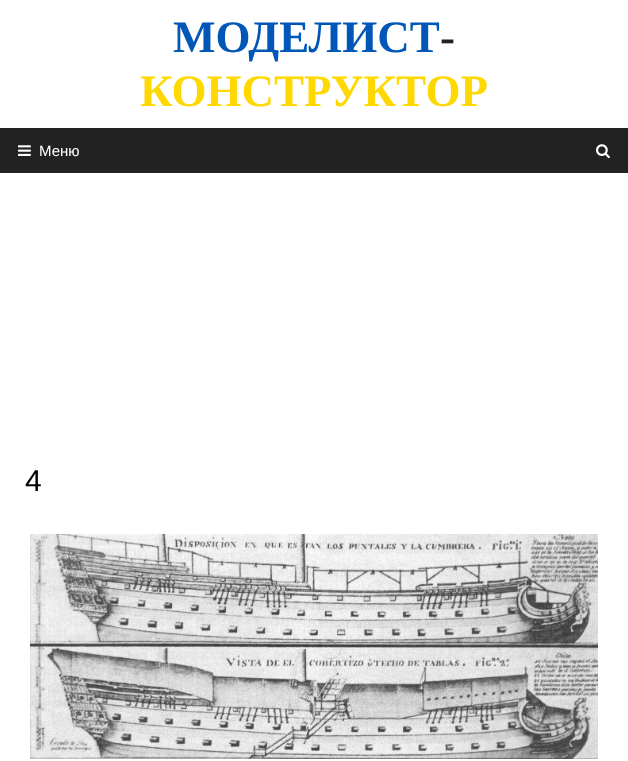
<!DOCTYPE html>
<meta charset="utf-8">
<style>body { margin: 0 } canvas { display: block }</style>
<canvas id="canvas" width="628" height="761"></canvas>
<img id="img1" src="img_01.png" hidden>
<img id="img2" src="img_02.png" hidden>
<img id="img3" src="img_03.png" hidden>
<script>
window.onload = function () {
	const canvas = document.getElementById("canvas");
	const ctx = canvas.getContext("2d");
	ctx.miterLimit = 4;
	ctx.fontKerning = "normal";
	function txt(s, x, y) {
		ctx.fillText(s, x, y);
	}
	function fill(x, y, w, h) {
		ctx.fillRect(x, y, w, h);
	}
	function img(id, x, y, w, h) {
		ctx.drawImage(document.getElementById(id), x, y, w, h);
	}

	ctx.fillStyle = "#FFFFFF";
	fill(0, 0, 628, 761);
	ctx.fillStyle = "#222222";
	fill(0, 128, 628, 45);
	img("img1", 18, 145, 13, 11);
	img("img2", 596, 144, 14, 15);
	img("img3", 30, 534, 568, 225);
	ctx.font = "bold 45px Liberation Serif";
	ctx.fillStyle = "#0057B8";
	txt("МОДЕЛИСТ", 173, 52);
	ctx.fillStyle = "#222222";
	txt("-", 440, 52);
	ctx.fillStyle = "#FFD800";
	txt("КОНСТРУКТОР", 140, 106);
	ctx.font = "15px Liberation Sans";
	ctx.fillStyle = "#FFFFFF";
	txt("Меню", 39, 156);
	ctx.font = "30px Liberation Sans";
	ctx.fillStyle = "#000000";
	txt("4", 25, 491);
};
</script>
